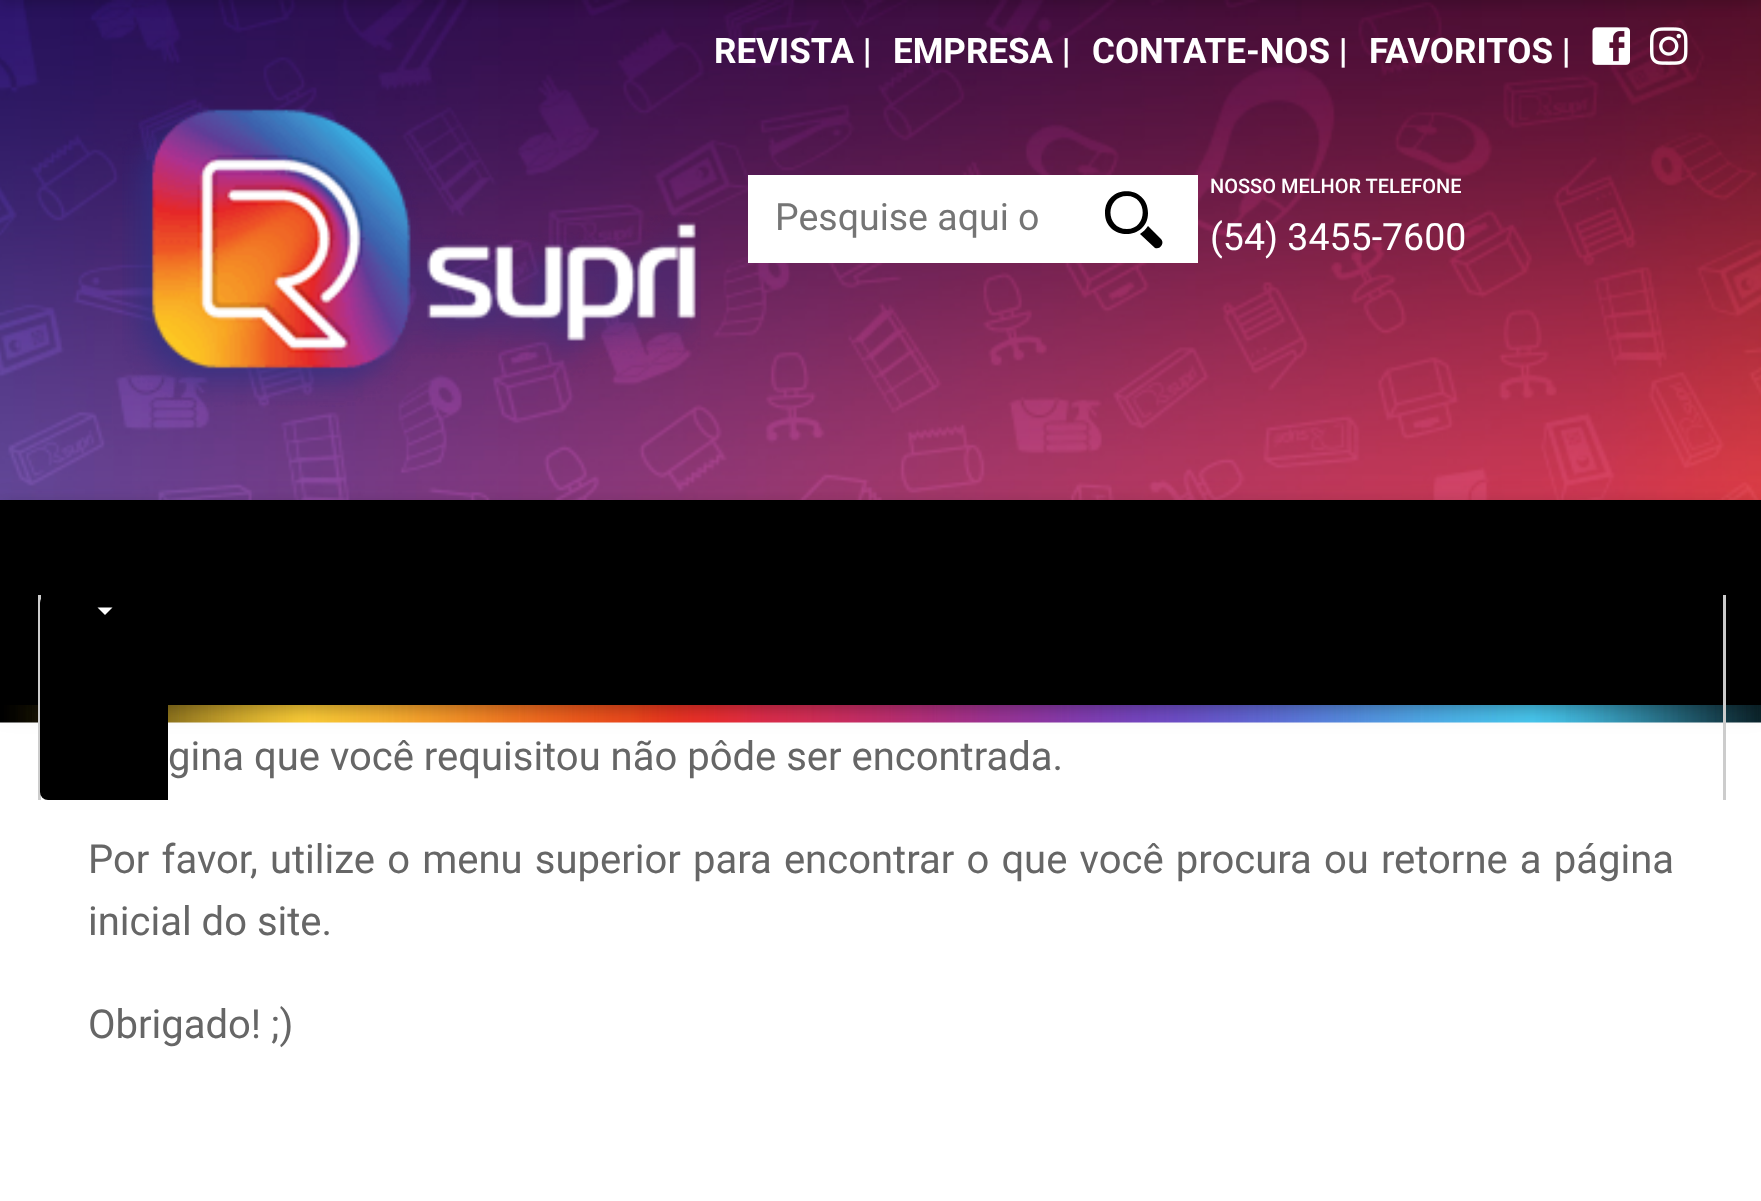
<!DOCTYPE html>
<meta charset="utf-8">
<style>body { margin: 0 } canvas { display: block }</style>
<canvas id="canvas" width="1761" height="1201"></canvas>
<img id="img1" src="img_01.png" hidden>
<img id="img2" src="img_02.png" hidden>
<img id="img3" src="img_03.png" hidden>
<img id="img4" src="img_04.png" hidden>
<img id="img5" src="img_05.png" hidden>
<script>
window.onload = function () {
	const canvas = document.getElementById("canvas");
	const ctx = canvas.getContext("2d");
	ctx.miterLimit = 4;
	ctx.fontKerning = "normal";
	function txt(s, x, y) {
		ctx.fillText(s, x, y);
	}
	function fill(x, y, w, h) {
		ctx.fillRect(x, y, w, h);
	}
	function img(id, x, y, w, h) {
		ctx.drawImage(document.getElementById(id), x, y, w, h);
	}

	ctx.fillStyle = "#FFFFFF";
	fill(0, 0, 1761, 1201);
	img("img1", 0, 0, 1761, 500);
	ctx.fillStyle = "rgba(0, 0, 0, 0.16)";
	ctx.filter = "blur(6px)";
	ctx.beginPath();
	ctx.rect(0, -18, 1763, 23);
	ctx.fill();
	ctx.filter = "none";
	img("img2", 1592, 27, 38, 38);
	img("img3", 1650, 27, 38, 38);
	img("img4", 122, 108, 579, 299);
	ctx.fillStyle = "#FFFFFF";
	fill(748, 175, 450, 88);
	ctx.fillStyle = "#000000";
	ctx.beginPath();
	ctx.moveTo(1148, 213);
	ctx.bezierCurveTo(1148, 184, 1105, 184, 1105, 213);
	ctx.bezierCurveTo(1105, 241, 1148, 241, 1148, 213);
	ctx.closePath();
	ctx.moveTo(1127, 229);
	ctx.bezierCurveTo(1105, 229, 1105, 196, 1127, 196);
	ctx.bezierCurveTo(1148, 196, 1148, 229, 1127, 229);
	ctx.closePath();
	ctx.moveTo(1161, 239);
	ctx.lineTo(1148, 226);
	ctx.bezierCurveTo(1146, 229, 1143, 232, 1140, 234);
	ctx.lineTo(1155, 248);
	ctx.bezierCurveTo(1160, 250, 1165, 243, 1161, 239);
	ctx.closePath();
	ctx.fill();
	img("img5", 0, 705, 1761, 18);
	ctx.fillStyle = "rgba(0, 0, 0, 0.12)";
	ctx.filter = "blur(12.5px)";
	ctx.beginPath();
	ctx.rect(0, 505, 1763, 205);
	ctx.fill();
	ctx.filter = "none";
	ctx.fillStyle = "rgba(0, 0, 0, 0.16)";
	ctx.filter = "blur(6px)";
	ctx.beginPath();
	ctx.rect(0, 505, 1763, 205);
	ctx.fill();
	ctx.filter = "none";
	ctx.fillStyle = "#000000";
	fill(0, 500, 1761, 205);
	ctx.fillStyle = "#CCCCCC";
	fill(1723, 595, 3, 205);
	fill(38, 595, 3, 205);
	ctx.fillStyle = "#000000";
	ctx.beginPath();
	ctx.roundRect(40, 595, 128, 205, [8, 0, 0, 8]);
	ctx.fill();
	ctx.fillStyle = "#FFFFFF";
	ctx.beginPath();
	ctx.moveTo(97.5, 607.5);
	ctx.lineTo(112.5, 607.5);
	ctx.lineTo(105, 615);
	ctx.closePath();
	ctx.fill();
	ctx.font = "bold 35px Roboto";
	txt("REVISTA |", 714, 63);
	txt("EMPRESA |", 893, 63);
	txt("CONTATE-NOS |", 1092, 63);
	txt("FAVORITOS |", 1369, 63);
	ctx.font = "500 20px Roboto";
	txt("NOSSO MELHOR TELEFONE", 1210, 193);
	ctx.font = "37.5px Roboto";
	ctx.fillStyle = "#757575";
	txt("Pesquise aqui o", 775, 230);
	ctx.fillStyle = "#FFFFFF";
	txt("(54) 3455-7600", 1210, 250);
	ctx.font = "40px Roboto";
	ctx.fillStyle = "#666666";
	txt("gina que você requisitou não pôde ser encontrada.", 168, 770);
	ctx.wordSpacing = "2.25px";
	txt("Por favor, utilize o menu superior para encontrar o que você procura ou retorne a página", 88, 873);
	ctx.wordSpacing = "0px";
	txt("inicial do site.", 88, 935);
	txt("Obrigado! ;)", 88, 1038);
};
</script>
